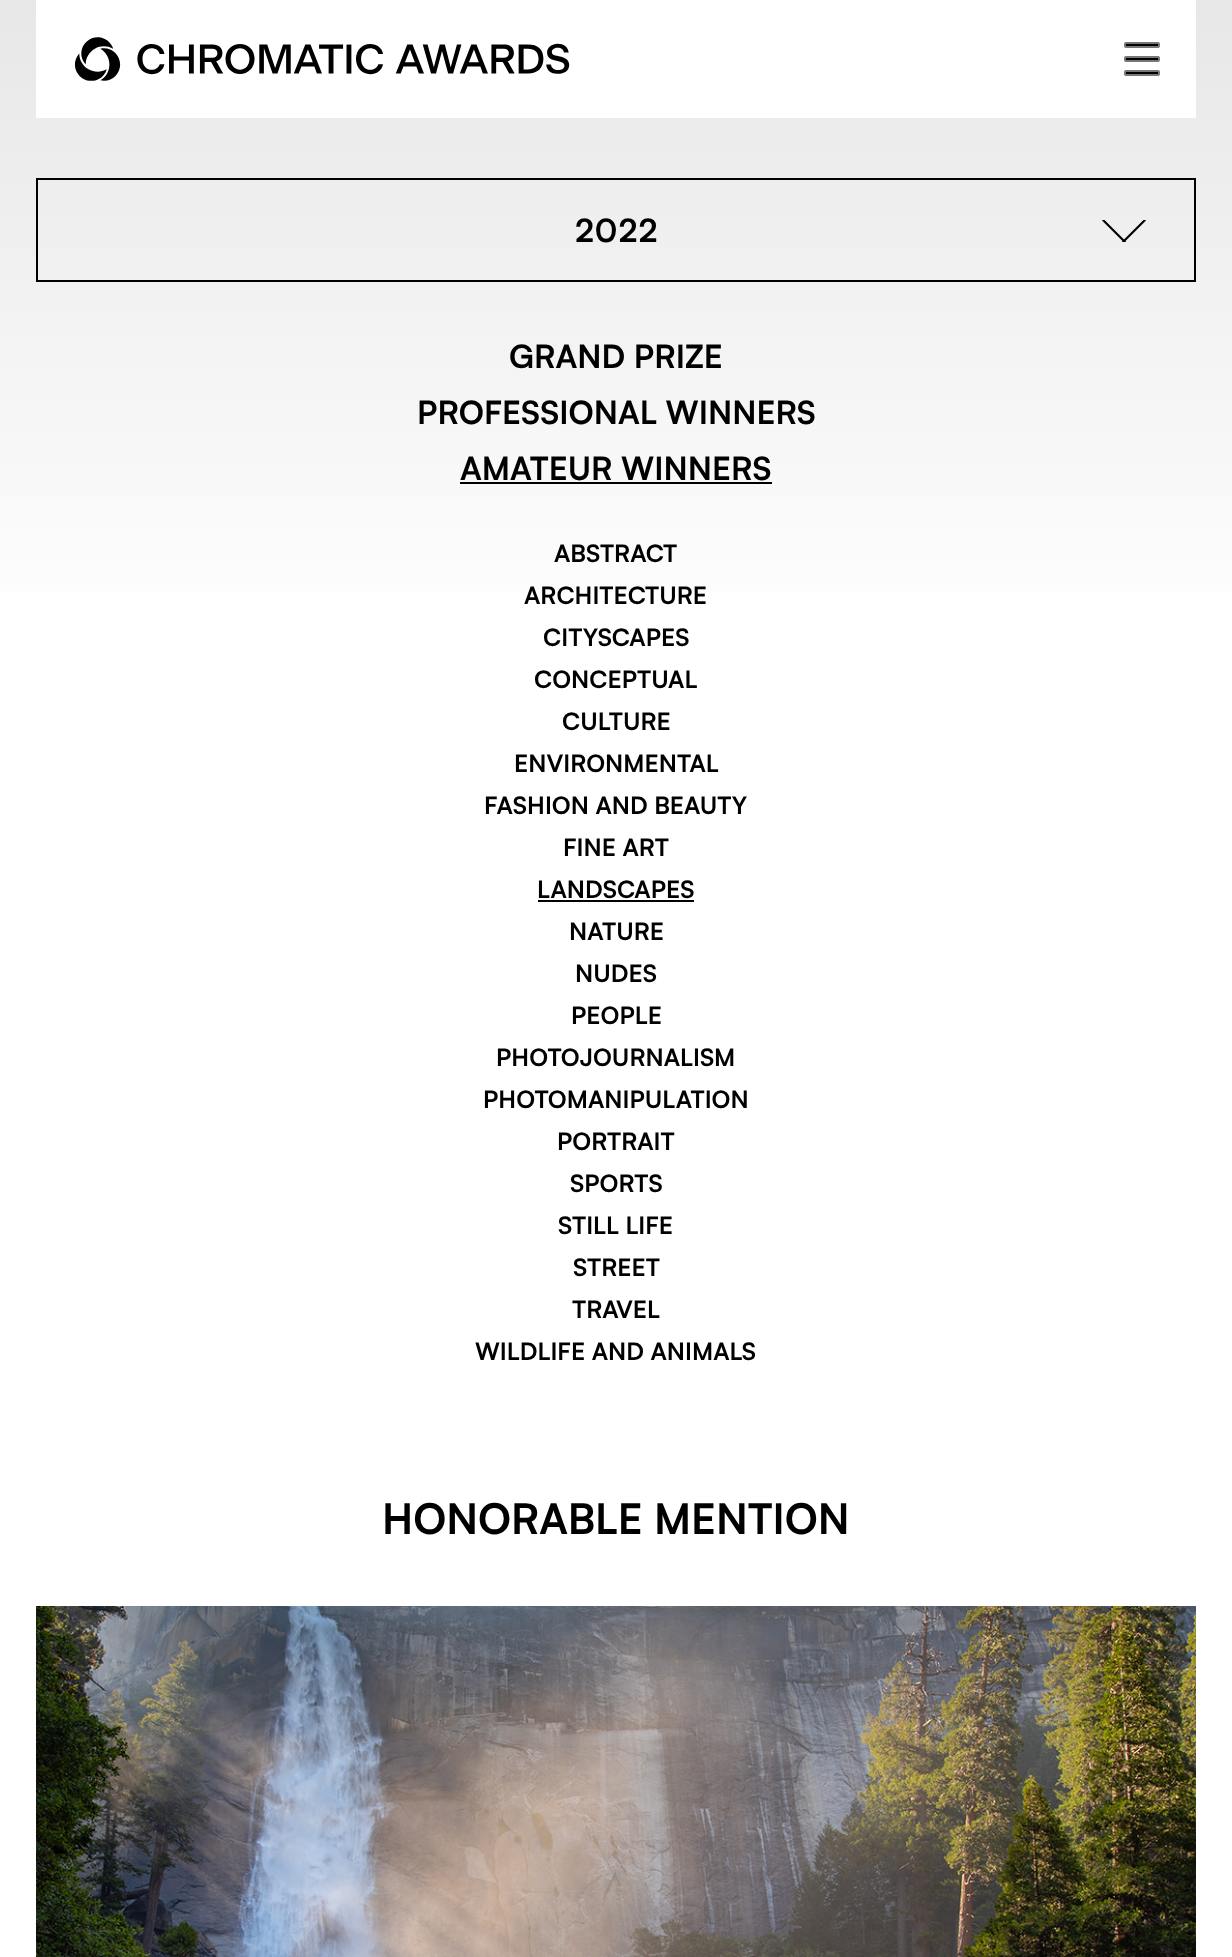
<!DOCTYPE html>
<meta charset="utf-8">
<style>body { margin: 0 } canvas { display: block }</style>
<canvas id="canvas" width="1232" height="1957"></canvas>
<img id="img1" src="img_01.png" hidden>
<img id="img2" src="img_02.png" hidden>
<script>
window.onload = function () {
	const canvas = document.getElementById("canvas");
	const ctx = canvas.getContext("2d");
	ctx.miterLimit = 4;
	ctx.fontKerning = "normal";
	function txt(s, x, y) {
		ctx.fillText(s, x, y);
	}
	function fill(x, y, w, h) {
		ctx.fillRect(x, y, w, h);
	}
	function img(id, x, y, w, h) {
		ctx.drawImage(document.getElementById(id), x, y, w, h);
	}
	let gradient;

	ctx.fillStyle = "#FFFFFF";
	fill(0, 0, 1232, 1957);
	gradient = ctx.createLinearGradient(616, 0, 616, 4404);
	gradient.addColorStop(0, "#E7E7E7");
	gradient.addColorStop(0.15, "#FFFFFF");
	gradient.addColorStop(1, "#FFFFFF");
	ctx.fillStyle = gradient;
	fill(0, 0, 1232, 592);
	ctx.fillStyle = "#FFFFFF";
	fill(36, 0, 1160, 118);
	img("img1", 74, 37, 496, 44);
	ctx.fillStyle = "#000000";
	ctx.beginPath();
	ctx.roundRect(1125, 43, 34, 4, 1);
	ctx.fill();
	ctx.strokeStyle = "#777777";
	ctx.lineWidth = 2;
	ctx.stroke();
	ctx.beginPath();
	ctx.roundRect(1125, 57, 34, 4, 1);
	ctx.fill();
	ctx.stroke();
	ctx.beginPath();
	ctx.roundRect(1125, 71, 34, 4, 1);
	ctx.fill();
	ctx.stroke();
	ctx.strokeStyle = "#000000";
	ctx.strokeRect(37, 179, 1158, 102);
	ctx.save();
	ctx.beginPath();
	ctx.rect(1102, 220, 44, 22);
	ctx.clip();
	ctx.beginPath();
	ctx.moveTo(1103.5, 219);
	ctx.lineTo(1126, 241.5);
	ctx.lineTo(1124.5, 243);
	ctx.lineTo(1102, 220.5);
	ctx.closePath();
	ctx.fill();
	ctx.beginPath();
	ctx.moveTo(1122, 241.5);
	ctx.lineTo(1144.5, 219);
	ctx.lineTo(1146, 220.5);
	ctx.lineTo(1123.5, 243);
	ctx.closePath();
	ctx.fill();
	ctx.restore();
	fill(460, 482, 312, 2);
	fill(538, 900, 156, 2);
	img("img2", 36, 1606, 1160, 351);
	ctx.letterSpacing = "1px";
	ctx.font = "bold 32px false";
	txt("2022", 575, 242);
	ctx.letterSpacing = "0px";
	txt("GRAND PRIZE", 509, 368);
	txt("PROFESSIONAL WINNERS", 417, 424);
	txt("AMATEUR WINNERS", 460, 480);
	ctx.font = "bold 24px false";
	txt("ABSTRACT", 554, 562);
	txt("ARCHITECTURE", 524, 604);
	txt("CITYSCAPES", 543, 646);
	txt("CONCEPTUAL", 534, 688);
	txt("CULTURE", 562, 730);
	txt("ENVIRONMENTAL", 514, 772);
	txt("FASHION AND BEAUTY", 484, 814);
	txt("FINE ART", 563, 856);
	txt("LANDSCAPES", 537, 898);
	txt("NATURE", 569, 940);
	txt("NUDES", 575, 982);
	txt("PEOPLE", 571, 1024);
	txt("PHOTOJOURNALISM", 496, 1066);
	txt("PHOTOMANIPULATION", 483, 1108);
	txt("PORTRAIT", 557, 1150);
	txt("SPORTS", 570, 1192);
	txt("STILL LIFE", 558, 1234);
	txt("STREET", 573, 1276);
	txt("TRAVEL", 572, 1318);
	txt("WILDLIFE AND ANIMALS", 475, 1360);
	ctx.font = "bold 42px false";
	txt("HONORABLE MENTION", 382, 1534);
};
</script>
